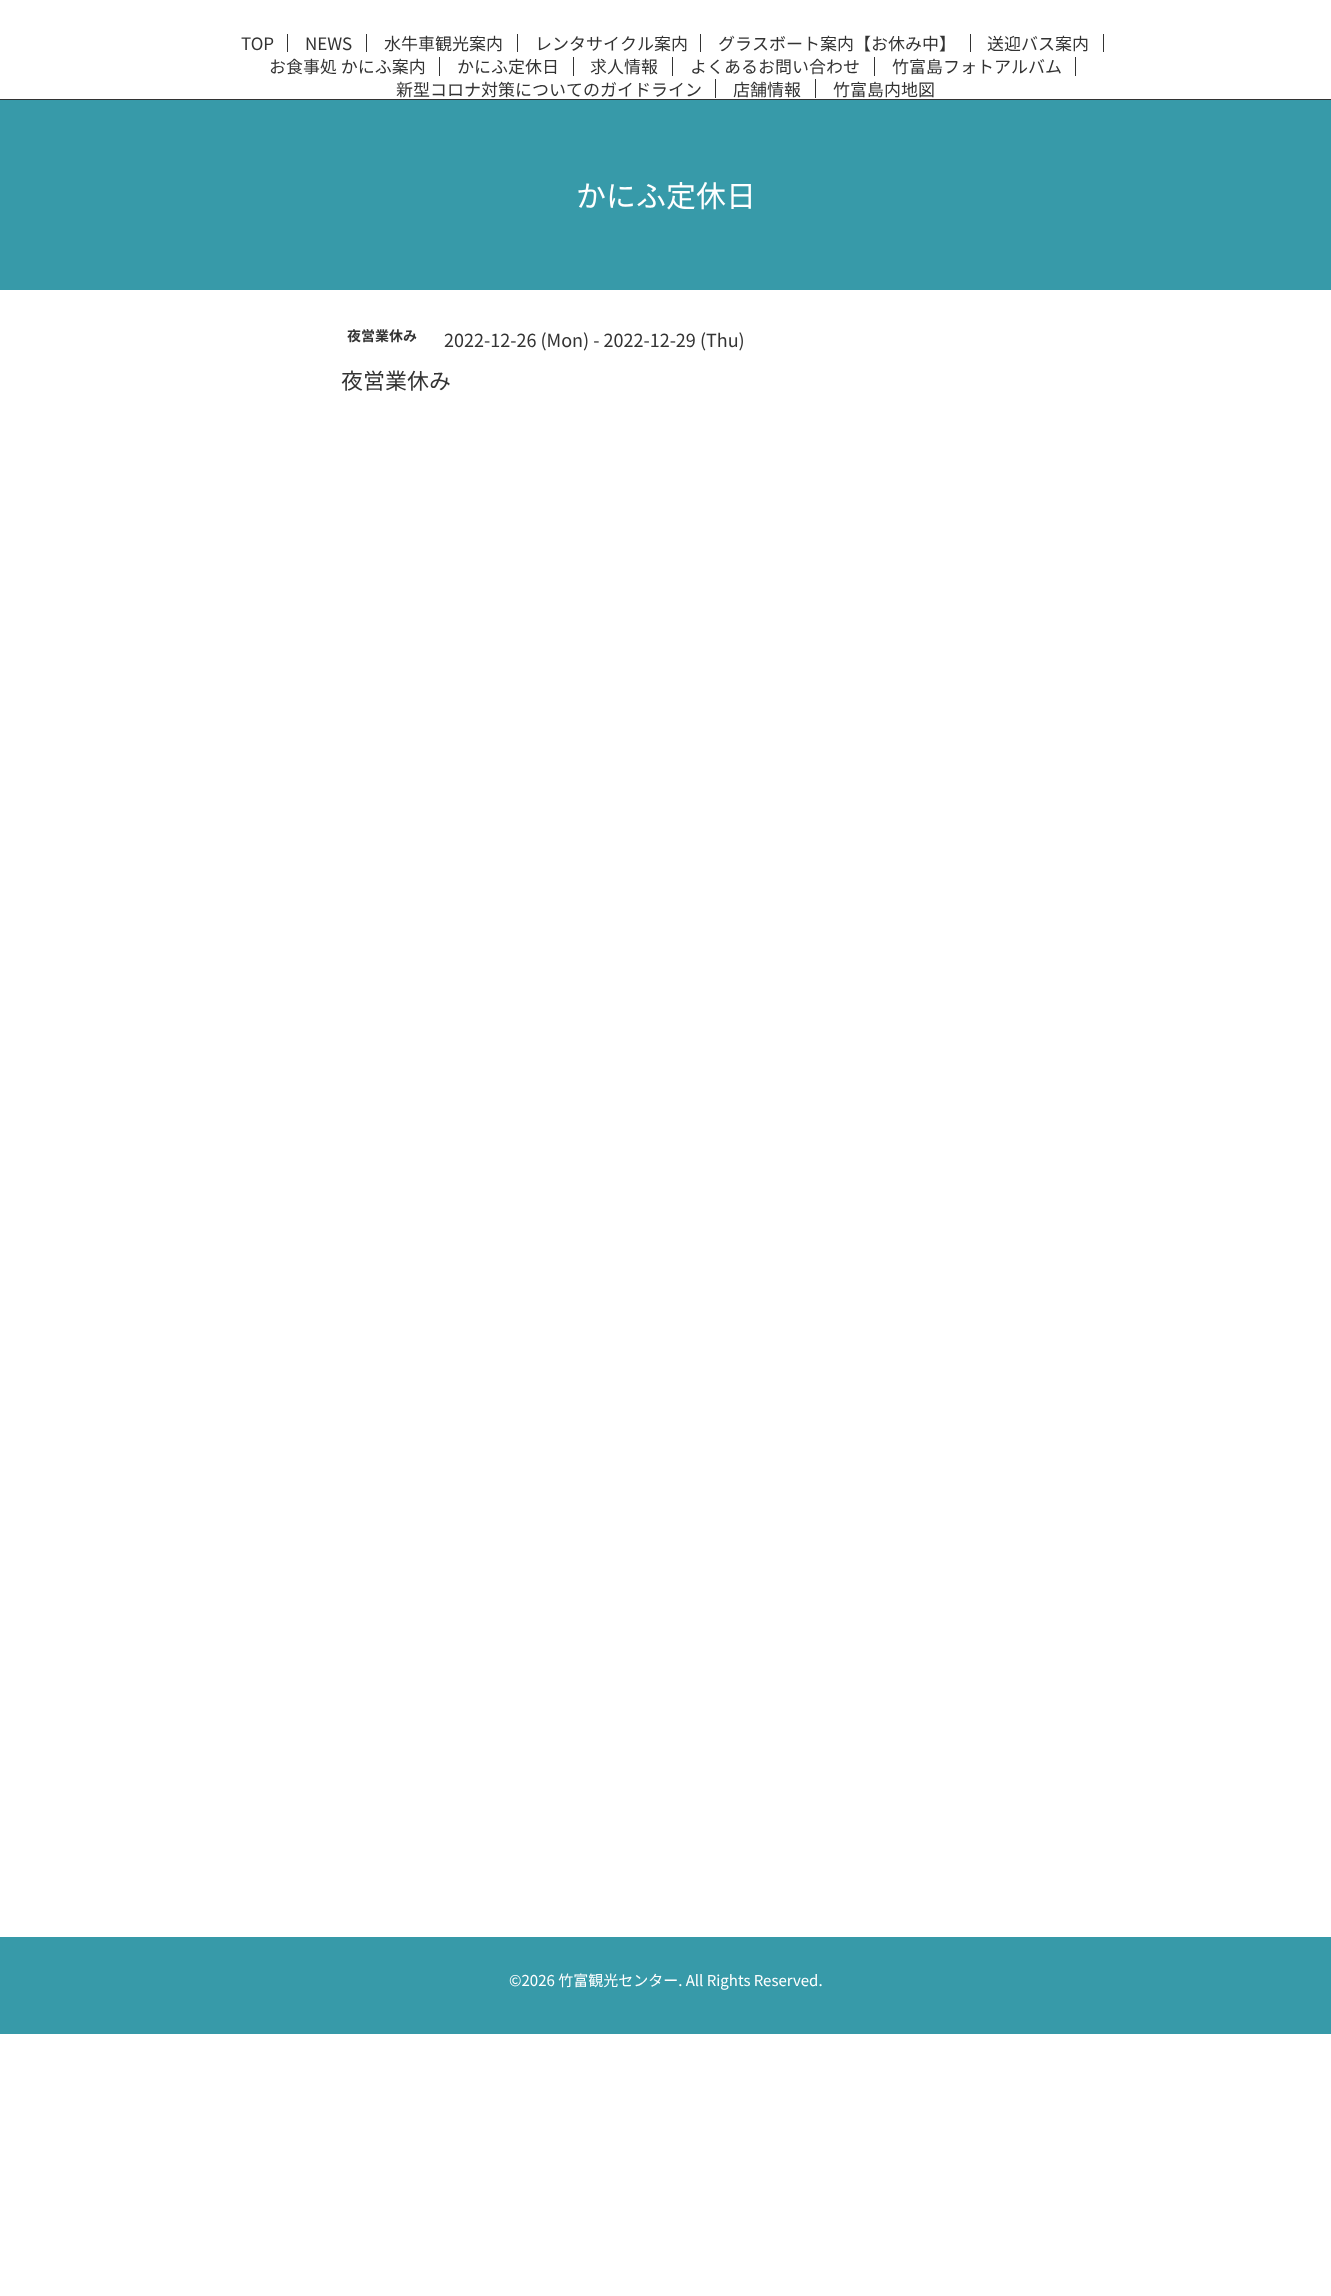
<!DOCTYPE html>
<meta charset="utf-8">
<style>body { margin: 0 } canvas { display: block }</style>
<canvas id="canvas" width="1331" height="2296"></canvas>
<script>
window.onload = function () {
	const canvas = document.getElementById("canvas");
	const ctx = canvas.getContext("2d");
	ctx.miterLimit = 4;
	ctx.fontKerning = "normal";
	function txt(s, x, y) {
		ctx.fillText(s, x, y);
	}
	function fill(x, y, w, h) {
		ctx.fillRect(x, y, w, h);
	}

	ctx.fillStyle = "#FFFFFF";
	fill(0, 0, 1331, 2296);
	ctx.fillStyle = "#333333";
	fill(0, 99, 1331, 1);
	fill(287, 34, 1, 18);
	fill(366, 34, 1, 18);
	fill(517, 34, 1, 18);
	fill(700, 34, 1, 18);
	fill(970, 34, 1, 18);
	fill(1103, 34, 1, 18);
	fill(439, 57, 1, 19);
	fill(573, 57, 1, 19);
	fill(672, 57, 1, 19);
	fill(874, 57, 1, 19);
	fill(1075, 57, 1, 19);
	fill(715, 79, 1, 19);
	fill(815, 79, 1, 19);
	ctx.fillStyle = "#379AA9";
	fill(0, 100, 1331, 190);
	fill(0, 1937, 1331, 97);
	ctx.font = "17px Noto Sans JP";
	ctx.fillStyle = "#333333";
	txt("TOP", 241, 50);
	txt("NEWS", 305, 50);
	txt("水牛車観光案内", 384, 50);
	txt("レンタサイクル案内", 535, 50);
	txt("グラスボート案内【お休み中】", 718, 50);
	txt("送迎バス案内", 987, 50);
	txt("お食事処 かにふ案内", 269, 73);
	txt("かにふ定休日", 457, 73);
	txt("求人情報", 590, 73);
	txt("よくあるお問い合わせ", 690, 73);
	txt("竹富島フォトアルバム", 892, 73);
	txt("新型コロナ対策についてのガイドライン", 396, 96);
	txt("店舗情報", 733, 96);
	txt("竹富島内地図", 833, 96);
	ctx.font = "30px Noto Sans JP";
	ctx.fillStyle = "#FFFFFF";
	txt("かにふ定休日", 576, 207);
	ctx.font = "bold 14px Noto Sans JP";
	ctx.fillStyle = "#333333";
	txt("夜営業休み", 347, 341);
	ctx.font = "18px Noto Sans JP";
	txt("2022-12-26 (Mon) - 2022-12-29 (Thu)", 444, 347);
	ctx.font = "22px Noto Sans JP";
	txt("夜営業休み", 341, 389);
	ctx.font = "15px Noto Sans JP";
	ctx.fillStyle = "#FFFFFF";
	txt("©2026 竹富観光センター. All Rights Reserved.", 509, 1986);
};
</script>
